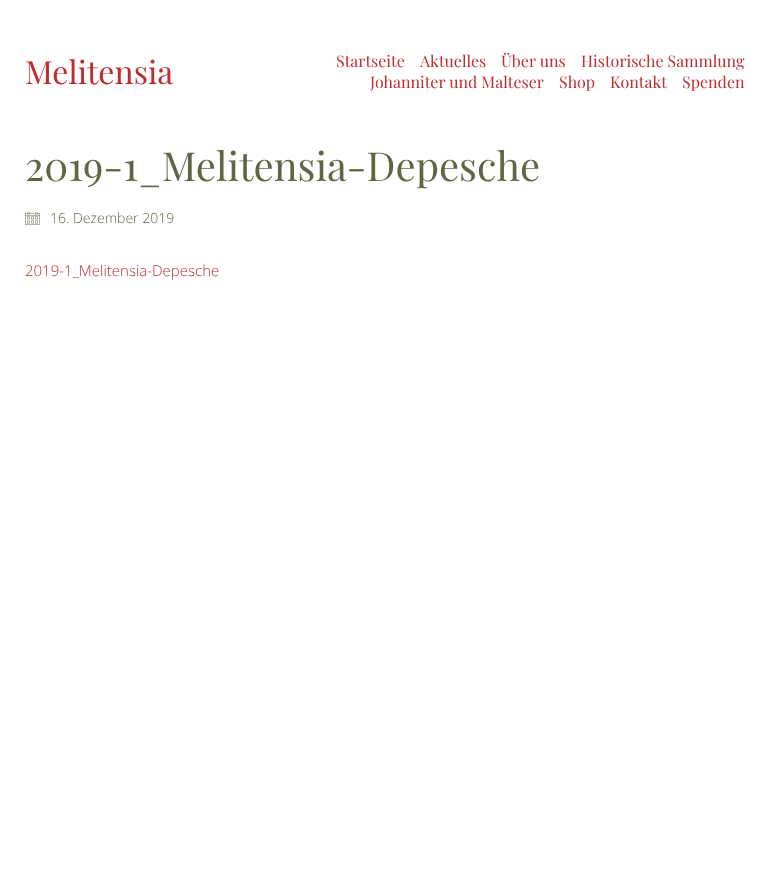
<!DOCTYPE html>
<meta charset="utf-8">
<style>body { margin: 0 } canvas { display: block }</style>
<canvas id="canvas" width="769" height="882"></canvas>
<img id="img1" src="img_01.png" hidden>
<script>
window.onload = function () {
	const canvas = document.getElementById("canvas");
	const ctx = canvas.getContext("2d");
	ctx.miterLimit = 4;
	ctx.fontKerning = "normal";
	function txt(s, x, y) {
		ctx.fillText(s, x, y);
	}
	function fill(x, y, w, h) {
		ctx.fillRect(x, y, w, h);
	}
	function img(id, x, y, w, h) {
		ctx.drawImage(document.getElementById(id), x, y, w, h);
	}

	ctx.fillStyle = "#FFFFFF";
	fill(0, 0, 769, 882);
	img("img1", 25, 212, 15, 13);
	ctx.font = "32px Playfair Display";
	ctx.fillStyle = "#BF2E2E";
	txt("Melitensia", 25, 84);
	ctx.font = "16px Playfair Display";
	txt("Startseite", 336, 67);
	txt("Aktuelles", 420, 67);
	txt("Über uns", 501, 67);
	txt("Historische Sammlung", 581, 67);
	txt("Johanniter und Malteser", 370, 88);
	txt("Shop", 559, 88);
	txt("Kontakt", 610, 88);
	txt("Spenden", 682, 88);
	ctx.font = "40px Playfair Display";
	ctx.fillStyle = "#636444";
	txt("2019-1_Melitensia-Depesche", 25, 181);
	ctx.font = "300 14px Open Sans";
	txt("16. Dezember 2019", 50, 223);
	ctx.font = "300 15px Open Sans";
	ctx.fillStyle = "#BF2E2E";
	txt("2019-1_Melitensia-Depesche", 25, 276);
};
</script>
